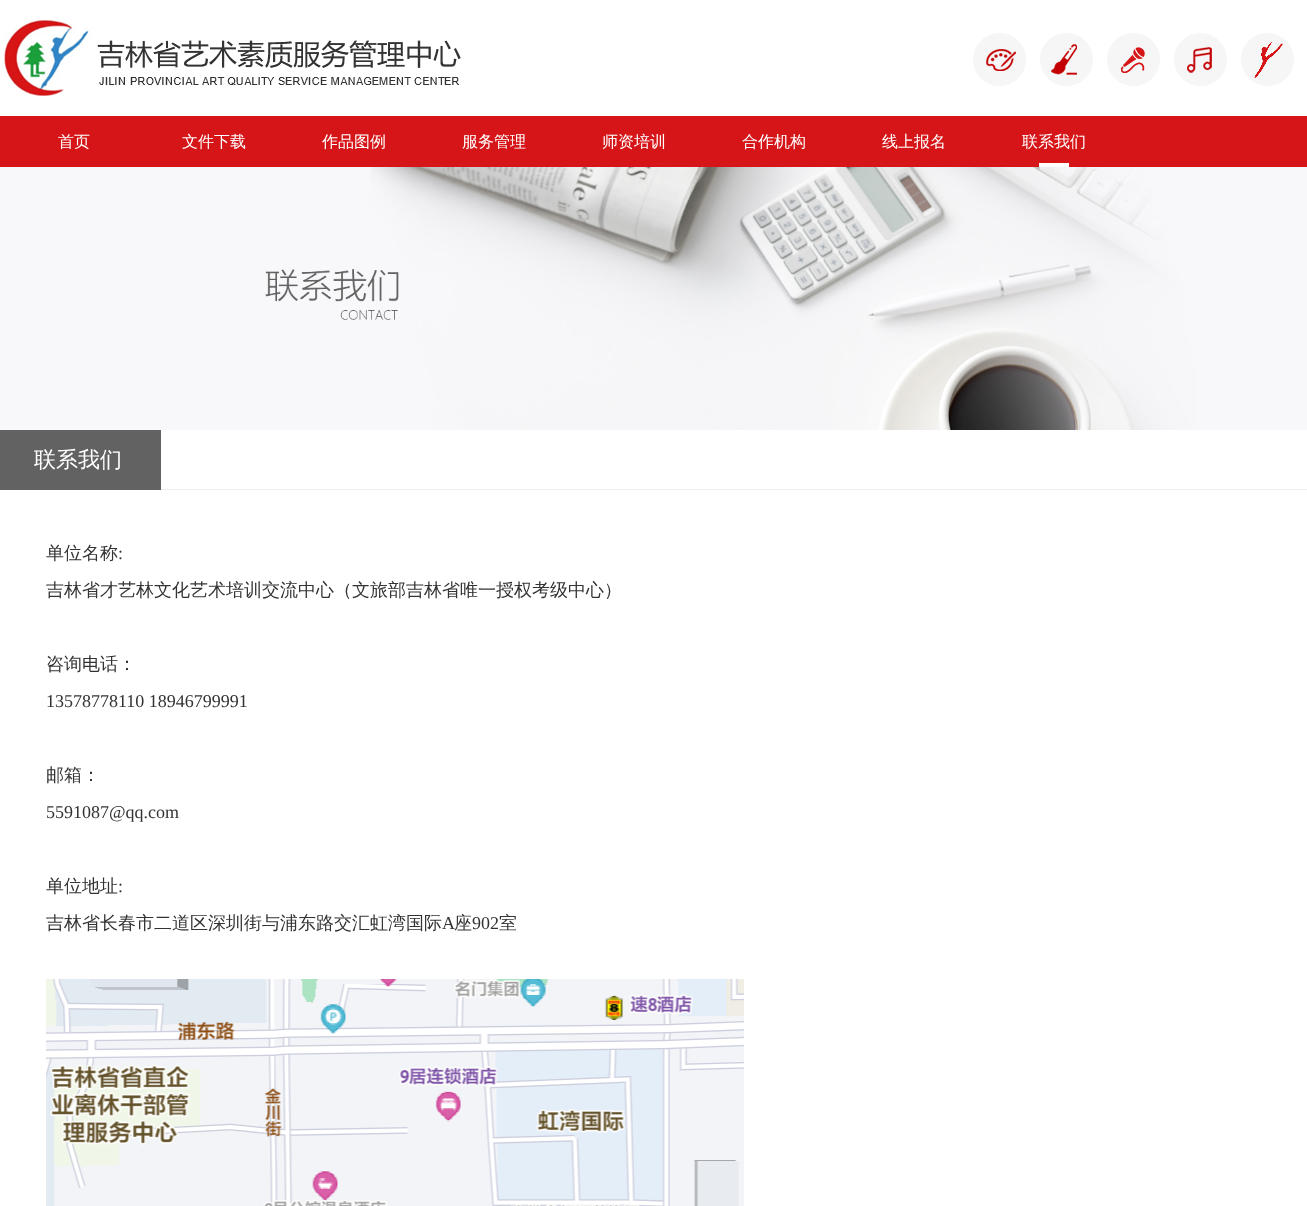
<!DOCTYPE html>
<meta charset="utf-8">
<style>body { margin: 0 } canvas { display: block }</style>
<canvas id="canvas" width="1307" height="1206"></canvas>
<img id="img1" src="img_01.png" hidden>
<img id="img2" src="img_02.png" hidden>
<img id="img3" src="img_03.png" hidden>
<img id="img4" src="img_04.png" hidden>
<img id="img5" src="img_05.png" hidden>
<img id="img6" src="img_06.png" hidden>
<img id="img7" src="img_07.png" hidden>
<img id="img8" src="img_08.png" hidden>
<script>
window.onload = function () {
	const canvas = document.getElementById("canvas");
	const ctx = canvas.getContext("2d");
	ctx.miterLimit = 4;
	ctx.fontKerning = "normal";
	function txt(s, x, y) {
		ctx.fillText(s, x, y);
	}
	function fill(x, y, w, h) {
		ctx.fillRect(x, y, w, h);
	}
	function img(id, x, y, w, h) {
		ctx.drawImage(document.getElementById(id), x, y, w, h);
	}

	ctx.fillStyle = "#FFFFFF";
	fill(0, 0, 1307, 1206);
	img("img1", 4, 20, 457, 76);
	img("img2", 973, 33, 53, 53);
	img("img3", 1040, 33, 53, 53);
	img("img4", 1107, 33, 53, 53);
	img("img5", 1174, 33, 53, 53);
	img("img6", 1241, 33, 53, 53);
	ctx.fillStyle = "#D51517";
	fill(0, 116, 1307, 51);
	ctx.fillStyle = "#FFFFFF";
	fill(1039, 163, 30, 4);
	img("img7", 0, 167, 1307, 263);
	ctx.fillStyle = "#EEEEEE";
	fill(161, 489, 1146, 1);
	ctx.fillStyle = "#626262";
	fill(0, 430, 161, 60);
	img("img8", 46, 979, 698, 227);
	ctx.font = "500 16px WenQuanYi Zen Hei";
	ctx.fillStyle = "#FFFFFF";
	txt("首页", 58, 147);
	txt("文件下载", 182, 147);
	txt("作品图例", 322, 147);
	txt("服务管理", 462, 147);
	txt("师资培训", 602, 147);
	txt("合作机构", 742, 147);
	txt("线上报名", 882, 147);
	txt("联系我们", 1022, 147);
	ctx.font = "500 22px WenQuanYi Zen Hei";
	txt("联系我们", 34, 467);
	ctx.font = "500 18px WenQuanYi Zen Hei";
	ctx.fillStyle = "#333333";
	txt("单位名称", 46, 559);
	ctx.font = "18px Liberation Serif";
	txt(":", 118, 559);
	ctx.font = "500 18px WenQuanYi Zen Hei";
	txt("吉林省才艺林文化艺术培训交流中心（文旅部吉林省唯一授权考级中心）", 46, 596);
	txt("咨询电话：", 46, 670);
	ctx.font = "18px Liberation Serif";
	txt("13578778110 18946799991", 46, 707);
	ctx.font = "500 18px WenQuanYi Zen Hei";
	txt("邮箱：", 46, 781);
	ctx.font = "18px Liberation Serif";
	txt("5591087@qq.com", 46, 818);
	ctx.font = "500 18px WenQuanYi Zen Hei";
	txt("单位地址", 46, 892);
	ctx.font = "18px Liberation Serif";
	txt(":", 118, 892);
	ctx.font = "500 18px WenQuanYi Zen Hei";
	txt("吉林省长春市二道区深圳街与浦东路交汇虹湾国际", 46, 929);
	ctx.font = "18px Liberation Serif";
	txt("A", 442, 929);
	ctx.font = "500 18px WenQuanYi Zen Hei";
	txt("座", 454, 929);
	ctx.font = "18px Liberation Serif";
	txt("902", 472, 929);
	ctx.font = "500 18px WenQuanYi Zen Hei";
	txt("室", 499, 929);
};
</script>
